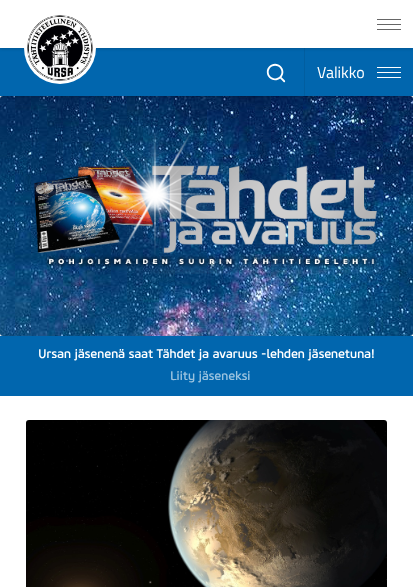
<!DOCTYPE html>
<meta charset="utf-8">
<style>body { margin: 0 } canvas { display: block }</style>
<canvas id="canvas" width="413" height="587"></canvas>
<img id="img1" src="img_03.png" hidden>
<img id="img2" src="img_01.png" hidden>
<img id="img3" src="img_02.png" hidden>
<img id="img4" src="img_04.png" hidden>
<img id="img5" src="img_05.png" hidden>
<script>
window.onload = function () {
	const canvas = document.getElementById("canvas");
	const ctx = canvas.getContext("2d");
	ctx.miterLimit = 4;
	ctx.fontKerning = "normal";
	function txt(s, x, y) {
		ctx.fillText(s, x, y);
	}
	function fill(x, y, w, h) {
		ctx.fillRect(x, y, w, h);
	}
	function img(id, x, y, w, h) {
		ctx.drawImage(document.getElementById(id), x, y, w, h);
	}

	ctx.fillStyle = "#FFFFFF";
	fill(0, 0, 413, 587);
	img("img1", 0, 96, 413, 240);
	ctx.fillStyle = "rgba(0, 0, 0, 0.08)";
	ctx.filter = "blur(1.5px)";
	ctx.beginPath();
	ctx.rect(0, 49, 413, 48);
	ctx.fill();
	ctx.filter = "none";
	ctx.fillStyle = "#0166AE";
	fill(0, 48, 413, 48);
	ctx.save();
	ctx.beginPath();
	ctx.rect(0, 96, 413, 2);
	ctx.clip();
	ctx.fillStyle = "rgba(0, 0, 0, 0.08)";
	ctx.filter = "blur(1.5px)";
	ctx.beginPath();
	ctx.rect(0, 49, 413, 48);
	ctx.fill();
	ctx.filter = "none";
	ctx.restore();
	ctx.fillStyle = "#015EA0";
	fill(304, 48, 1, 48);
	ctx.fillStyle = "rgba(0, 0, 0, 0.15)";
	ctx.filter = "blur(1.5px)";
	ctx.beginPath();
	ctx.rect(0, 1, 413, 48);
	ctx.fill();
	ctx.filter = "none";
	ctx.fillStyle = "#FFFFFF";
	fill(0, 0, 413, 48);
	ctx.beginPath();
	ctx.arc(60, 48, 36, 0, Math.PI * 2);
	ctx.fill();
	img("img2", 27, 15, 66, 66);
	ctx.fillStyle = "#666666";
	fill(377, 24, 24, 1);
	fill(377, 19, 24, 1);
	fill(377, 29, 24, 1);
	img("img3", 266, 63, 20, 20);
	ctx.fillStyle = "#FFFFFF";
	fill(377, 72, 24, 1);
	fill(377, 67, 24, 1);
	fill(377, 77, 24, 1);
	img("img4", 34, 133, 347, 141);
	ctx.fillStyle = "#0166AE";
	fill(0, 336, 413, 60);
	img("img5", 26, 420, 361, 167);
	ctx.font = "16px Titillium Web";
	ctx.fillStyle = "#FFFFFF";
	txt("Valikko", 317, 78);
	ctx.font = "bold 12px 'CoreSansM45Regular'";
	txt("Ursan jäsenenä saat Tähdet ja avaruus -lehden jäsenetuna!", 38, 358);
	ctx.fillStyle = "#99C2DF";
	txt("Liity jäseneksi", 170, 380);
};
</script>
